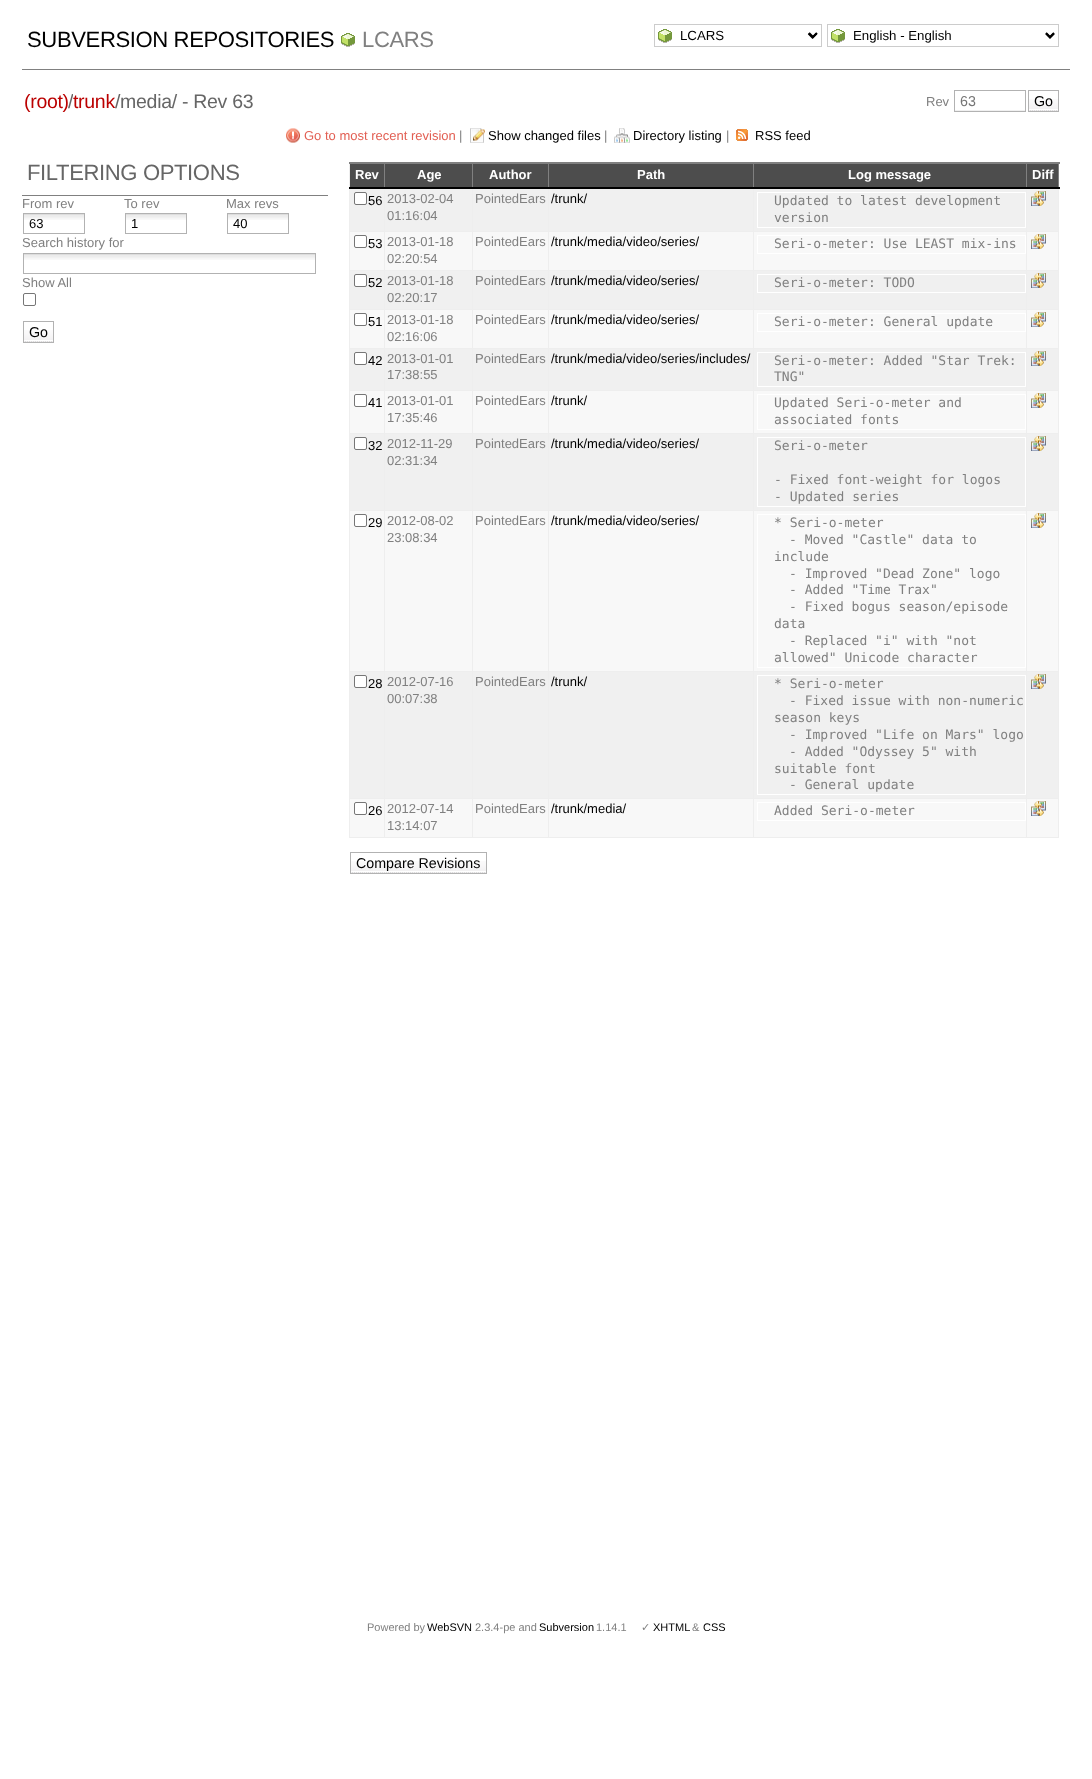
<!DOCTYPE html>
<meta charset="utf-8">
<style>body { margin: 0 } canvas { display: block }</style>
<canvas id="canvas" width="1092" height="1779"></canvas>
<img id="img1" src="img_01.png" hidden>
<img id="img2" src="img_02.png" hidden>
<img id="img3" src="img_03.png" hidden>
<img id="img4" src="img_04.png" hidden>
<img id="img5" src="img_05.png" hidden>
<img id="img6" src="img_06.png" hidden>
<img id="img7" src="img_07.png" hidden>
<img id="img8" src="img_08.png" hidden>
<img id="img9" src="img_09.png" hidden>
<img id="img10" src="img_10.png" hidden>
<img id="img11" src="img_11.png" hidden>
<img id="img12" src="img_12.png" hidden>
<img id="img13" src="img_13.png" hidden>
<img id="img14" src="img_14.png" hidden>
<script>
window.onload = function () {
	const canvas = document.getElementById("canvas");
	const ctx = canvas.getContext("2d");
	ctx.miterLimit = 4;
	ctx.fontKerning = "normal";
	function txt(s, x, y) {
		ctx.fillText(s, x, y);
	}
	function fill(x, y, w, h) {
		ctx.fillRect(x, y, w, h);
	}
	function img(id, x, y, w, h) {
		ctx.drawImage(document.getElementById(id), x, y, w, h);
	}

	ctx.fillStyle = "#FFFFFF";
	fill(0, 0, 1092, 1779);
	ctx.fillStyle = "#808080";
	fill(22, 69, 1048, 1);
	img("img1", 341, 33, 14, 14);
	img("img2", 658, 29, 160, 14);
	ctx.strokeStyle = "#CCCCCC";
	ctx.strokeRect(654.5, 24.5, 167, 22);
	ctx.beginPath();
	ctx.moveTo(808.5, 33.5);
	ctx.lineTo(812.5, 37.5);
	ctx.lineTo(816.5, 33.5);
	ctx.strokeStyle = "#000000";
	ctx.lineWidth = 2;
	ctx.stroke();
	img("img3", 831, 29, 224, 14);
	ctx.strokeStyle = "#CCCCCC";
	ctx.lineWidth = 1;
	ctx.strokeRect(827.5, 24.5, 231, 22);
	ctx.beginPath();
	ctx.moveTo(1046, 33.5);
	ctx.lineTo(1050, 37.5);
	ctx.lineTo(1054, 33.5);
	ctx.strokeStyle = "#000000";
	ctx.lineWidth = 2;
	ctx.stroke();
	img("img4", 955, 110, 70, 1);
	ctx.strokeStyle = "#B2B2B2";
	ctx.lineWidth = 1;
	ctx.strokeRect(954.5, 90.5, 71, 21);
	img("img5", 1029, 99, 29, 12);
	ctx.strokeRect(1028.5, 90.5, 30, 21);
	img("img6", 286, 128, 14, 15);
	img("img7", 470, 128, 15, 15);
	img("img8", 614, 128, 16, 15);
	img("img9", 736, 129, 12, 12);
	fill(22, 195, 306, 1);
	img("img10", 24, 214, 60, 6);
	ctx.strokeRect(23.5, 213.5, 61, 20);
	img("img10", 126, 214, 60, 6);
	ctx.strokeRect(125.5, 213.5, 61, 20);
	img("img10", 228, 214, 60, 6);
	ctx.strokeRect(227.5, 213.5, 61, 20);
	img("img11", 24, 254, 291, 6);
	ctx.strokeRect(23.5, 253.5, 292, 20);
	ctx.beginPath();
	ctx.roundRect(23.5, 293.5, 12, 12, 1.5);
	ctx.strokeStyle = "#767676";
	ctx.stroke();
	img("img5", 24, 330, 29, 12);
	ctx.strokeStyle = "#B2B2B2";
	ctx.strokeRect(23.5, 321.5, 30, 21);
	ctx.fillStyle = "#4D4D4D";
	fill(350, 164, 708, 23);
	ctx.fillStyle = "#EEEEEE";
	fill(1026, 231, 33, 1);
	fill(1026, 270, 33, 1);
	fill(1026, 309, 33, 1);
	fill(1026, 348, 33, 1);
	fill(1026, 390, 33, 1);
	fill(1026, 433, 33, 1);
	fill(1026, 510, 33, 1);
	fill(1026, 671, 33, 1);
	fill(1026, 798, 33, 1);
	fill(1058, 798, 1, 40);
	fill(1026, 837, 33, 1);
	fill(1026, 798, 1, 40);
	fill(753, 798, 274, 1);
	fill(1026, 671, 1, 128);
	fill(753, 671, 274, 1);
	fill(1026, 510, 1, 162);
	fill(753, 510, 274, 1);
	fill(1026, 433, 1, 78);
	fill(753, 433, 274, 1);
	fill(1026, 390, 1, 44);
	fill(753, 390, 274, 1);
	fill(1026, 348, 1, 43);
	fill(753, 348, 274, 1);
	fill(1026, 309, 1, 40);
	fill(753, 309, 274, 1);
	fill(1026, 270, 1, 40);
	fill(753, 270, 274, 1);
	fill(1026, 231, 1, 40);
	fill(753, 231, 274, 1);
	fill(753, 837, 274, 1);
	fill(753, 798, 1, 40);
	fill(548, 798, 206, 1);
	fill(753, 671, 1, 128);
	fill(548, 671, 206, 1);
	fill(753, 510, 1, 162);
	fill(548, 510, 206, 1);
	fill(753, 433, 1, 78);
	fill(548, 433, 206, 1);
	fill(753, 390, 1, 44);
	fill(548, 390, 206, 1);
	fill(753, 348, 1, 43);
	fill(548, 348, 206, 1);
	fill(753, 309, 1, 40);
	fill(548, 309, 206, 1);
	fill(753, 270, 1, 40);
	fill(548, 270, 206, 1);
	fill(753, 231, 1, 40);
	fill(548, 231, 206, 1);
	fill(548, 837, 206, 1);
	fill(548, 798, 1, 40);
	fill(472, 798, 77, 1);
	fill(548, 671, 1, 128);
	fill(472, 671, 77, 1);
	fill(548, 510, 1, 162);
	fill(472, 510, 77, 1);
	fill(548, 433, 1, 78);
	fill(472, 433, 77, 1);
	fill(548, 390, 1, 44);
	fill(472, 390, 77, 1);
	fill(548, 348, 1, 43);
	fill(472, 348, 77, 1);
	fill(548, 309, 1, 40);
	fill(472, 309, 77, 1);
	fill(548, 270, 1, 40);
	fill(472, 270, 77, 1);
	fill(548, 231, 1, 40);
	fill(472, 231, 77, 1);
	fill(472, 837, 77, 1);
	fill(472, 798, 1, 40);
	fill(384, 798, 89, 1);
	fill(472, 671, 1, 128);
	fill(384, 671, 89, 1);
	fill(472, 510, 1, 162);
	fill(384, 510, 89, 1);
	fill(472, 433, 1, 78);
	fill(384, 433, 89, 1);
	fill(472, 390, 1, 44);
	fill(384, 390, 89, 1);
	fill(472, 348, 1, 43);
	fill(384, 348, 89, 1);
	fill(472, 309, 1, 40);
	fill(384, 309, 89, 1);
	fill(472, 270, 1, 40);
	fill(384, 270, 89, 1);
	fill(472, 231, 1, 40);
	fill(384, 231, 89, 1);
	fill(384, 837, 89, 1);
	fill(384, 798, 1, 40);
	fill(349, 798, 36, 1);
	fill(384, 671, 1, 128);
	fill(349, 671, 36, 1);
	fill(384, 510, 1, 162);
	fill(349, 510, 36, 1);
	fill(384, 433, 1, 78);
	fill(349, 433, 36, 1);
	fill(384, 390, 1, 44);
	fill(349, 390, 36, 1);
	fill(384, 348, 1, 43);
	fill(349, 348, 36, 1);
	fill(384, 309, 1, 40);
	fill(349, 309, 36, 1);
	fill(384, 270, 1, 40);
	fill(349, 270, 36, 1);
	fill(384, 231, 1, 40);
	fill(349, 231, 36, 1);
	fill(384, 188, 1, 44);
	ctx.fillStyle = "#808080";
	fill(384, 163, 1, 26);
	ctx.fillStyle = "#EEEEEE";
	fill(472, 188, 1, 44);
	ctx.fillStyle = "#808080";
	fill(472, 163, 1, 26);
	ctx.fillStyle = "#EEEEEE";
	fill(548, 188, 1, 44);
	ctx.fillStyle = "#808080";
	fill(548, 163, 1, 26);
	ctx.fillStyle = "#EEEEEE";
	fill(753, 188, 1, 44);
	ctx.fillStyle = "#808080";
	fill(753, 163, 1, 26);
	ctx.fillStyle = "#EEEEEE";
	fill(1026, 188, 1, 44);
	ctx.fillStyle = "#808080";
	fill(1026, 163, 1, 26);
	ctx.fillStyle = "#EEEEEE";
	fill(1058, 671, 1, 128);
	fill(1058, 510, 1, 162);
	fill(1058, 433, 1, 78);
	fill(1058, 390, 1, 44);
	fill(1058, 348, 1, 43);
	fill(1058, 309, 1, 40);
	fill(1058, 270, 1, 40);
	fill(1058, 188, 1, 83);
	ctx.fillStyle = "#808080";
	fill(1058, 163, 1, 26);
	ctx.fillStyle = "#EEEEEE";
	fill(349, 837, 36, 1);
	fill(349, 798, 1, 40);
	fill(349, 671, 1, 128);
	fill(349, 510, 1, 162);
	fill(349, 433, 1, 78);
	fill(349, 390, 1, 44);
	fill(349, 348, 1, 43);
	fill(349, 309, 1, 40);
	fill(349, 270, 1, 40);
	fill(349, 163, 1, 108);
	ctx.fillStyle = "#808080";
	fill(349, 162, 711, 2);
	ctx.fillStyle = "#000000";
	fill(349, 187, 711, 2);
	ctx.fillStyle = "#F0F0F0";
	fill(350, 189, 34, 42);
	ctx.fillStyle = "#FFFFFF";
	ctx.beginPath();
	ctx.roundRect(354.5, 192.5, 12, 12, 1.5);
	ctx.fill();
	ctx.strokeStyle = "#767676";
	ctx.stroke();
	ctx.fillStyle = "#F0F0F0";
	fill(385, 189, 87, 42);
	fill(473, 189, 75, 42);
	fill(549, 189, 204, 42);
	fill(754, 189, 272, 42);
	ctx.strokeStyle = "#FFFFFF";
	ctx.strokeRect(757.5, 192.5, 268, 35);
	fill(1027, 189, 31, 42);
	img("img12", 1031, 191, 15, 15);
	ctx.fillStyle = "#F8F8F8";
	fill(350, 232, 34, 38);
	ctx.fillStyle = "#FFFFFF";
	ctx.beginPath();
	ctx.roundRect(354.5, 235.5, 12, 12, 1.5);
	ctx.fill();
	ctx.strokeStyle = "#767676";
	ctx.stroke();
	ctx.fillStyle = "#F8F8F8";
	fill(385, 232, 87, 38);
	fill(473, 232, 75, 38);
	fill(549, 232, 204, 38);
	fill(754, 232, 272, 38);
	ctx.strokeStyle = "#FFFFFF";
	ctx.strokeRect(757.5, 235.5, 268, 18);
	fill(1027, 232, 31, 38);
	img("img13", 1031, 234, 15, 15);
	ctx.fillStyle = "#F0F0F0";
	fill(350, 271, 34, 38);
	ctx.fillStyle = "#FFFFFF";
	ctx.beginPath();
	ctx.roundRect(354.5, 274.5, 12, 12, 1.5);
	ctx.fill();
	ctx.strokeStyle = "#767676";
	ctx.stroke();
	ctx.fillStyle = "#F0F0F0";
	fill(385, 271, 87, 38);
	fill(473, 271, 75, 38);
	fill(549, 271, 204, 38);
	fill(754, 271, 272, 38);
	ctx.strokeStyle = "#FFFFFF";
	ctx.strokeRect(757.5, 274.5, 268, 18);
	fill(1027, 271, 31, 38);
	img("img12", 1031, 273, 15, 15);
	ctx.fillStyle = "#F8F8F8";
	fill(350, 310, 34, 38);
	ctx.fillStyle = "#FFFFFF";
	ctx.beginPath();
	ctx.roundRect(354.5, 313.5, 12, 12, 1.5);
	ctx.fill();
	ctx.strokeStyle = "#767676";
	ctx.stroke();
	ctx.fillStyle = "#F8F8F8";
	fill(385, 310, 87, 38);
	fill(473, 310, 75, 38);
	fill(549, 310, 204, 38);
	fill(754, 310, 272, 38);
	ctx.strokeStyle = "#FFFFFF";
	ctx.strokeRect(757.5, 313.5, 268, 18);
	fill(1027, 310, 31, 38);
	img("img13", 1031, 312, 15, 15);
	ctx.fillStyle = "#F0F0F0";
	fill(350, 349, 34, 41);
	ctx.fillStyle = "#FFFFFF";
	ctx.beginPath();
	ctx.roundRect(354.5, 352.5, 12, 12, 1.5);
	ctx.fill();
	ctx.strokeStyle = "#767676";
	ctx.stroke();
	ctx.fillStyle = "#F0F0F0";
	fill(385, 349, 87, 41);
	fill(473, 349, 75, 41);
	fill(549, 349, 204, 41);
	fill(754, 349, 272, 41);
	ctx.strokeStyle = "#FFFFFF";
	ctx.strokeRect(757.5, 352.5, 268, 34);
	fill(1027, 349, 31, 41);
	img("img12", 1031, 351, 15, 15);
	ctx.fillStyle = "#F8F8F8";
	fill(350, 391, 34, 42);
	ctx.fillStyle = "#FFFFFF";
	ctx.beginPath();
	ctx.roundRect(354.5, 394.5, 12, 12, 1.5);
	ctx.fill();
	ctx.strokeStyle = "#767676";
	ctx.stroke();
	ctx.fillStyle = "#F8F8F8";
	fill(385, 391, 87, 42);
	fill(473, 391, 75, 42);
	fill(549, 391, 204, 42);
	fill(754, 391, 272, 42);
	ctx.strokeStyle = "#FFFFFF";
	ctx.strokeRect(757.5, 394.5, 268, 35);
	fill(1027, 391, 31, 42);
	img("img13", 1031, 393, 15, 15);
	ctx.fillStyle = "#F0F0F0";
	fill(350, 434, 34, 76);
	ctx.fillStyle = "#FFFFFF";
	ctx.beginPath();
	ctx.roundRect(354.5, 437.5, 12, 12, 1.5);
	ctx.fill();
	ctx.strokeStyle = "#767676";
	ctx.stroke();
	ctx.fillStyle = "#F0F0F0";
	fill(385, 434, 87, 76);
	fill(473, 434, 75, 76);
	fill(549, 434, 204, 76);
	fill(754, 434, 272, 76);
	ctx.strokeStyle = "#FFFFFF";
	ctx.strokeRect(757.5, 437.5, 268, 69);
	fill(1027, 434, 31, 76);
	img("img12", 1031, 436, 15, 15);
	ctx.fillStyle = "#F8F8F8";
	fill(350, 511, 34, 160);
	ctx.fillStyle = "#FFFFFF";
	ctx.beginPath();
	ctx.roundRect(354.5, 514.5, 12, 12, 1.5);
	ctx.fill();
	ctx.strokeStyle = "#767676";
	ctx.stroke();
	ctx.fillStyle = "#F8F8F8";
	fill(385, 511, 87, 160);
	fill(473, 511, 75, 160);
	fill(549, 511, 204, 160);
	fill(754, 511, 272, 160);
	ctx.strokeStyle = "#FFFFFF";
	ctx.strokeRect(757.5, 514.5, 268, 153);
	fill(1027, 511, 31, 160);
	img("img13", 1031, 513, 15, 15);
	ctx.fillStyle = "#F0F0F0";
	fill(350, 672, 34, 126);
	ctx.fillStyle = "#FFFFFF";
	ctx.beginPath();
	ctx.roundRect(354.5, 675.5, 12, 12, 1.5);
	ctx.fill();
	ctx.strokeStyle = "#767676";
	ctx.stroke();
	ctx.fillStyle = "#F0F0F0";
	fill(385, 672, 87, 126);
	fill(473, 672, 75, 126);
	fill(549, 672, 204, 126);
	fill(754, 672, 272, 126);
	ctx.strokeStyle = "#FFFFFF";
	ctx.strokeRect(757.5, 675.5, 268, 119);
	fill(1027, 672, 31, 126);
	img("img12", 1031, 674, 15, 15);
	ctx.fillStyle = "#F8F8F8";
	fill(350, 799, 34, 38);
	ctx.fillStyle = "#FFFFFF";
	ctx.beginPath();
	ctx.roundRect(354.5, 802.5, 12, 12, 1.5);
	ctx.fill();
	ctx.strokeStyle = "#767676";
	ctx.stroke();
	ctx.fillStyle = "#F8F8F8";
	fill(385, 799, 87, 38);
	fill(473, 799, 75, 38);
	fill(549, 799, 204, 38);
	fill(754, 799, 272, 38);
	ctx.strokeStyle = "#FFFFFF";
	ctx.strokeRect(757.5, 802.5, 268, 18);
	fill(1027, 799, 31, 38);
	img("img13", 1031, 801, 15, 15);
	img("img14", 351, 861, 135, 12);
	ctx.strokeStyle = "#B2B2B2";
	ctx.strokeRect(350.5, 852.5, 136, 21);
	ctx.letterSpacing = "-0.4px";
	ctx.font = "22.1px Liberation Sans";
	ctx.fillStyle = "#000000";
	txt("SUBVERSION REPOSITORIES", 27, 47);
	ctx.fillStyle = "#808080";
	txt("LCARS", 362, 47);
	ctx.letterSpacing = "0px";
	ctx.font = "13.25px Liberation Sans";
	ctx.fillStyle = "#000000";
	txt("LCARS", 680, 40);
	txt("English - English", 853, 40);
	ctx.letterSpacing = "-0.3px";
	ctx.font = "19.5px Liberation Sans";
	ctx.fillStyle = "#BB0000";
	txt("(root)", 24, 108);
	ctx.fillStyle = "#666666";
	txt("/", 68, 108);
	ctx.fillStyle = "#FFFFFF";
	fill(73, 93, 1, 4);
	ctx.fillStyle = "#BB0000";
	txt("trunk", 73, 108);
	ctx.fillStyle = "#666666";
	txt("/media/ - Rev 63", 115, 108);
	ctx.letterSpacing = "0px";
	ctx.font = "13px Liberation Sans";
	ctx.fillStyle = "#808080";
	txt("Rev", 926, 106);
	ctx.font = "14.25px Liberation Sans";
	ctx.fillStyle = "#757575";
	txt("63", 960, 106);
	ctx.fillStyle = "#000000";
	txt("Go", 1034, 106);
	ctx.font = "13px Liberation Sans";
	ctx.fillStyle = "#E25F53";
	txt("Go to most recent revision", 304, 140);
	ctx.fillStyle = "#808080";
	txt("|", 459, 140);
	ctx.fillStyle = "#000000";
	txt("Show changed files", 488, 140);
	ctx.fillStyle = "#808080";
	txt("|", 604, 140);
	ctx.fillStyle = "#000000";
	txt("Directory listing", 633, 140);
	ctx.fillStyle = "#808080";
	txt("|", 726, 140);
	ctx.fillStyle = "#000000";
	txt("RSS feed", 755, 140);
	ctx.letterSpacing = "-0.4px";
	ctx.font = "22.1px Liberation Sans";
	ctx.fillStyle = "#666666";
	txt("FILTERING OPTIONS", 27, 180);
	ctx.letterSpacing = "0px";
	ctx.font = "13px Liberation Sans";
	ctx.fillStyle = "#808080";
	txt("From rev", 22, 208);
	txt("To rev", 124, 208);
	txt("Max revs", 226, 208);
	ctx.fillStyle = "#000000";
	txt("63", 29, 228);
	txt("1", 131, 228);
	txt("40", 233, 228);
	ctx.fillStyle = "#808080";
	txt("Search history for", 22, 247);
	txt("Show All", 22, 287);
	ctx.font = "14.25px Liberation Sans";
	ctx.fillStyle = "#000000";
	txt("Go", 29, 337);
	ctx.font = "bold 13px Liberation Sans";
	ctx.fillStyle = "#FFFFFF";
	txt("Rev", 355, 179);
	txt("Age", 417, 179);
	txt("Author", 489, 179);
	txt("Path", 637, 179);
	txt("Log message", 848, 179);
	txt("Diff", 1032, 179);
	ctx.font = "13px Liberation Sans";
	ctx.fillStyle = "#000000";
	txt("56", 368, 205);
	ctx.fillStyle = "#808080";
	txt("2013-02-04", 387, 203);
	txt("01:16:04", 387, 220);
	txt("PointedEars", 475, 203);
	ctx.fillStyle = "#000000";
	txt("/trunk/", 551, 203);
	ctx.font = "13px DejaVu Sans Mono";
	ctx.fillStyle = "#808080";
	txt("Updated to latest development", 774, 205);
	txt("version", 774, 222);
	ctx.font = "13px Liberation Sans";
	ctx.fillStyle = "#000000";
	txt("53", 368, 248);
	ctx.fillStyle = "#808080";
	txt("2013-01-18", 387, 246);
	txt("02:20:54", 387, 263);
	txt("PointedEars", 475, 246);
	ctx.fillStyle = "#000000";
	txt("/trunk/media/video/series/", 551, 246);
	ctx.font = "13px DejaVu Sans Mono";
	ctx.fillStyle = "#808080";
	txt("Seri-o-meter: Use LEAST mix-ins", 774, 248);
	ctx.font = "13px Liberation Sans";
	ctx.fillStyle = "#000000";
	txt("52", 368, 287);
	ctx.fillStyle = "#808080";
	txt("2013-01-18", 387, 285);
	txt("02:20:17", 387, 302);
	txt("PointedEars", 475, 285);
	ctx.fillStyle = "#000000";
	txt("/trunk/media/video/series/", 551, 285);
	ctx.font = "13px DejaVu Sans Mono";
	ctx.fillStyle = "#808080";
	txt("Seri-o-meter: TODO", 774, 287);
	ctx.font = "13px Liberation Sans";
	ctx.fillStyle = "#000000";
	txt("51", 368, 326);
	ctx.fillStyle = "#808080";
	txt("2013-01-18", 387, 324);
	txt("02:16:06", 387, 341);
	txt("PointedEars", 475, 324);
	ctx.fillStyle = "#000000";
	txt("/trunk/media/video/series/", 551, 324);
	ctx.font = "13px DejaVu Sans Mono";
	ctx.fillStyle = "#808080";
	txt("Seri-o-meter: General update", 774, 326);
	ctx.font = "13px Liberation Sans";
	ctx.fillStyle = "#000000";
	txt("42", 368, 365);
	ctx.fillStyle = "#808080";
	txt("2013-01-01", 387, 363);
	txt("17:38:55", 387, 379);
	txt("PointedEars", 475, 363);
	ctx.fillStyle = "#000000";
	txt("/trunk/media/video/series/includes/", 551, 363);
	ctx.font = "13px DejaVu Sans Mono";
	ctx.fillStyle = "#808080";
	txt("Seri-o-meter: Added \"Star Trek:", 774, 365);
	txt("TNG\"", 774, 381);
	ctx.font = "13px Liberation Sans";
	ctx.fillStyle = "#000000";
	txt("41", 368, 407);
	ctx.fillStyle = "#808080";
	txt("2013-01-01", 387, 405);
	txt("17:35:46", 387, 422);
	txt("PointedEars", 475, 405);
	ctx.fillStyle = "#000000";
	txt("/trunk/", 551, 405);
	ctx.font = "13px DejaVu Sans Mono";
	ctx.fillStyle = "#808080";
	txt("Updated Seri-o-meter and", 774, 407);
	txt("associated fonts", 774, 424);
	ctx.font = "13px Liberation Sans";
	ctx.fillStyle = "#000000";
	txt("32", 368, 450);
	ctx.fillStyle = "#808080";
	txt("2012-11-29", 387, 448);
	txt("02:31:34", 387, 465);
	txt("PointedEars", 475, 448);
	ctx.fillStyle = "#000000";
	txt("/trunk/media/video/series/", 551, 448);
	ctx.font = "13px DejaVu Sans Mono";
	ctx.fillStyle = "#808080";
	txt("Seri-o-meter", 774, 450);
	txt("- Fixed font-weight for logos", 774, 484);
	txt("- Updated series", 774, 501);
	ctx.font = "13px Liberation Sans";
	ctx.fillStyle = "#000000";
	txt("29", 368, 527);
	ctx.fillStyle = "#808080";
	txt("2012-08-02", 387, 525);
	txt("23:08:34", 387, 542);
	txt("PointedEars", 475, 525);
	ctx.fillStyle = "#000000";
	txt("/trunk/media/video/series/", 551, 525);
	ctx.font = "13px DejaVu Sans Mono";
	ctx.fillStyle = "#808080";
	txt("* Seri-o-meter", 774, 527);
	txt("- Moved \"Castle\" data to", 789, 544);
	txt("include", 774, 561);
	txt("- Improved \"Dead Zone\" logo", 789, 578);
	txt("- Added \"Time Trax\"", 789, 594);
	txt("- Fixed bogus season/episode", 789, 611);
	txt("data", 774, 628);
	txt("- Replaced \"i\" with \"not", 789, 645);
	txt("allowed\" Unicode character", 774, 662);
	ctx.font = "13px Liberation Sans";
	ctx.fillStyle = "#000000";
	txt("28", 368, 688);
	ctx.fillStyle = "#808080";
	txt("2012-07-16", 387, 686);
	txt("00:07:38", 387, 703);
	txt("PointedEars", 475, 686);
	ctx.fillStyle = "#000000";
	txt("/trunk/", 551, 686);
	ctx.font = "13px DejaVu Sans Mono";
	ctx.fillStyle = "#808080";
	txt("* Seri-o-meter", 774, 688);
	txt("- Fixed issue with non-numeric", 789, 705);
	txt("season keys", 774, 722);
	txt("- Improved \"Life on Mars\" logo", 789, 739);
	txt("- Added \"Odyssey 5\" with", 789, 756);
	txt("suitable font", 774, 773);
	txt("- General update", 789, 789);
	ctx.font = "13px Liberation Sans";
	ctx.fillStyle = "#000000";
	txt("26", 368, 815);
	ctx.fillStyle = "#808080";
	txt("2012-07-14", 387, 813);
	txt("13:14:07", 387, 830);
	txt("PointedEars", 475, 813);
	ctx.fillStyle = "#000000";
	txt("/trunk/media/", 551, 813);
	ctx.font = "13px DejaVu Sans Mono";
	ctx.fillStyle = "#808080";
	txt("Added Seri-o-meter", 774, 815);
	ctx.font = "14.25px Liberation Sans";
	ctx.fillStyle = "#000000";
	txt("Compare Revisions", 356, 868);
	ctx.font = "11px Liberation Sans";
	ctx.fillStyle = "#808080";
	txt("Powered by", 367, 1631);
	ctx.fillStyle = "#000000";
	txt("WebSVN", 427, 1631);
	ctx.fillStyle = "#808080";
	txt("2.3.4-pe and", 475, 1631);
	ctx.fillStyle = "#000000";
	txt("Subversion", 539, 1631);
	ctx.fillStyle = "#808080";
	txt("1.14.1", 596, 1631);
	ctx.font = "11px DejaVu Sans";
	txt("✓", 641, 1631);
	ctx.font = "11px Liberation Sans";
	ctx.fillStyle = "#000000";
	txt("XHTML", 653, 1631);
	ctx.fillStyle = "#808080";
	txt("&", 692, 1631);
	ctx.fillStyle = "#000000";
	txt("CSS", 703, 1631);
};
</script>
